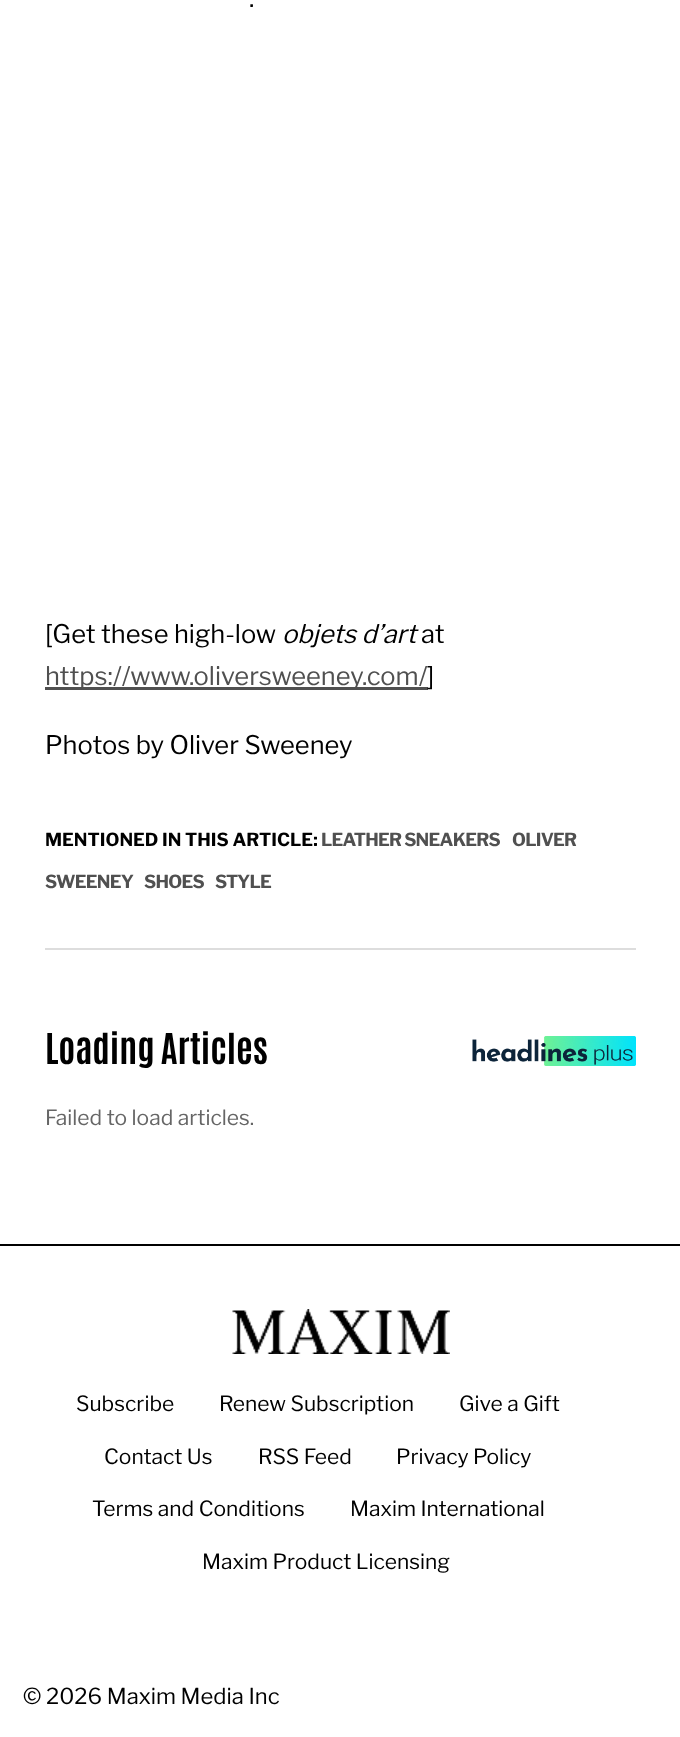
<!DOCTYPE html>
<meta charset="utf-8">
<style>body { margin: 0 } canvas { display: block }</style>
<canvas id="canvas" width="680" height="1737"></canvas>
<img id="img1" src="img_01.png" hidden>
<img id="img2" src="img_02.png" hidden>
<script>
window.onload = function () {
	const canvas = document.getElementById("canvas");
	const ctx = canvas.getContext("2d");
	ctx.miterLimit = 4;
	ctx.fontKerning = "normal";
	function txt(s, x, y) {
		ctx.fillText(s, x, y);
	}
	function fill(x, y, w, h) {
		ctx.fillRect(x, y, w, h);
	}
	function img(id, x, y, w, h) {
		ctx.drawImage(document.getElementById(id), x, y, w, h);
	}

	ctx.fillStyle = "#FFFFFF";
	fill(0, 0, 680, 1737);
	ctx.fillStyle = "#505050";
	fill(45, 687, 383, 3);
	ctx.fillStyle = "#DDDDDD";
	fill(45, 948, 591, 2);
	img("img1", 472, 1036, 164, 30);
	ctx.fillStyle = "#000000";
	fill(0, 1244, 680, 2);
	img("img2", 232, 1309, 218, 45);
	ctx.font = "100 25.5px Libre Franklin";
	txt(".", 249, 7);
	txt("[Get these high-low", 45, 643);
	ctx.font = "italic 100 25.5px Libre Franklin";
	txt("objets d’art", 282, 643);
	ctx.font = "100 25.5px Libre Franklin";
	txt("at", 421, 643);
	ctx.fillStyle = "#505050";
	txt("https://www.oliversweeney.com/", 45, 685);
	ctx.fillStyle = "#000000";
	txt("]", 427, 685);
	txt("Photos by Oliver Sweeney", 45, 754);
	ctx.font = "100 18px 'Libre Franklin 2'";
	txt("MENTIONED IN THIS ARTICLE:", 45, 846);
	ctx.letterSpacing = "-0.75px";
	ctx.fillStyle = "#505050";
	txt("LEATHER SNEAKERS", 321, 846);
	txt("OLIVER", 512, 846);
	txt("SWEENEY", 45, 888);
	txt("SHOES", 144, 888);
	txt("STYLE", 215, 888);
	ctx.letterSpacing = "0px";
	ctx.font = "bold 36px Antonio";
	ctx.fillStyle = "#000000";
	txt("Loading Articles", 45, 1064);
	ctx.font = "100 21px Libre Franklin";
	ctx.fillStyle = "#666666";
	txt("Failed to load articles.", 45, 1125);
	ctx.fillStyle = "#000000";
	txt("Subscribe", 76, 1411);
	txt("Renew Subscription", 219, 1411);
	txt("Give a Gift", 459, 1411);
	txt("Contact Us", 104, 1464);
	txt("RSS Feed", 258, 1464);
	txt("Privacy Policy", 396, 1464);
	txt("Terms and Conditions", 92, 1516);
	txt("Maxim International", 350, 1516);
	txt("Maxim Product Licensing", 202, 1569);
	ctx.font = "100 22px Libre Franklin";
	txt("© 2026 Maxim Media Inc", 23, 1704);
};
</script>
